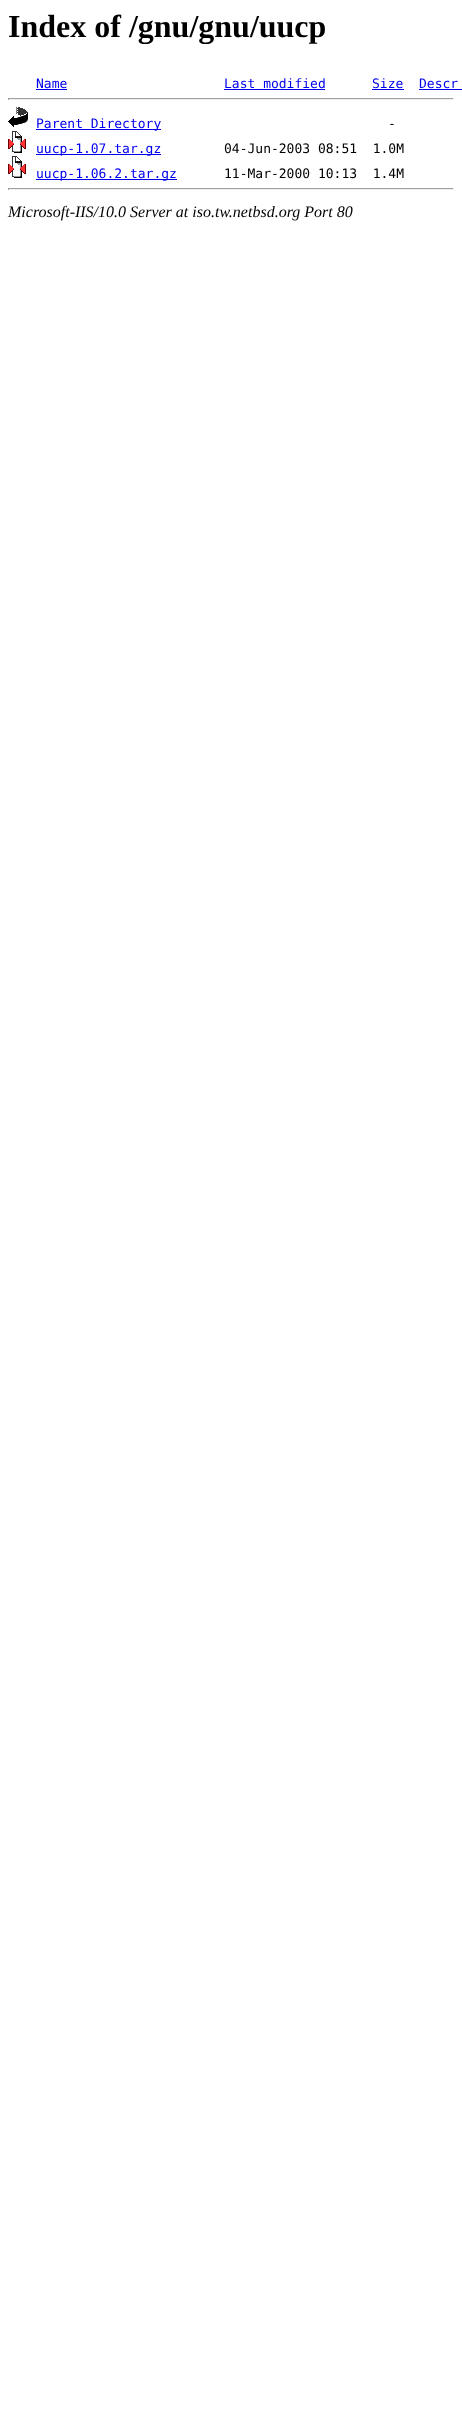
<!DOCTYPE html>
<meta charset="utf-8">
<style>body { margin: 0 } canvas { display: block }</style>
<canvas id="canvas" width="462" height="2409"></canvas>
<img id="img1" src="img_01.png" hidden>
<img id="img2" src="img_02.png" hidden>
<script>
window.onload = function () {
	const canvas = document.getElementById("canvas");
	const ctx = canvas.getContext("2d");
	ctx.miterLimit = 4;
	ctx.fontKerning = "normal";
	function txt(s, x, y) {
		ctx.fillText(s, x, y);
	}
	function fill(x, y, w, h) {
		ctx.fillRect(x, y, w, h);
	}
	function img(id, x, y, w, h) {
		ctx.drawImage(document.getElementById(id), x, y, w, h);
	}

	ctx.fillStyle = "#FFFFFF";
	fill(0, 0, 462, 2409);
	ctx.fillStyle = "#0000EE";
	fill(36, 89, 31, 1);
	fill(224, 89, 101, 1);
	fill(372, 89, 32, 1);
	fill(419, 89, 43, 1);
	ctx.fillStyle = "#9F9F9F";
	fill(8, 98, 446, 1);
	ctx.fillStyle = "#EEEEEE";
	fill(453, 98, 1, 2);
	fill(8, 99, 446, 1);
	ctx.fillStyle = "#9F9F9F";
	fill(8, 98, 1, 2);
	img("img1", 8, 107, 20, 20);
	ctx.fillStyle = "#0000EE";
	fill(36, 129, 125, 1);
	img("img2", 8, 131, 18, 22);
	fill(36, 154, 125, 1);
	img("img2", 8, 156, 18, 22);
	fill(36, 179, 141, 1);
	ctx.fillStyle = "#9F9F9F";
	fill(8, 188, 446, 1);
	ctx.fillStyle = "#EEEEEE";
	fill(453, 188, 1, 2);
	fill(8, 189, 446, 1);
	ctx.fillStyle = "#9F9F9F";
	fill(8, 188, 1, 2);
	ctx.font = "bold 32px Liberation Serif";
	ctx.fillStyle = "#000000";
	txt("Index of /gnu/gnu/uucp", 8, 37);
	ctx.font = "13px DejaVu Sans Mono";
	ctx.fillStyle = "#0000EE";
	txt("Name", 36, 88);
	txt("Last modified", 224, 88);
	txt("Size", 372, 88);
	txt("Descr", 419, 88);
	txt("Parent Directory", 36, 128);
	ctx.fillStyle = "#000000";
	txt("-", 388, 128);
	ctx.fillStyle = "#0000EE";
	txt("uucp-1.07.tar.gz", 36, 153);
	ctx.fillStyle = "#000000";
	txt("04-Jun-2003 08:51  1.0M", 224, 153);
	ctx.fillStyle = "#0000EE";
	txt("uucp-1.06.2.tar.gz", 36, 178);
	ctx.fillStyle = "#000000";
	txt("11-Mar-2000 10:13  1.4M", 224, 178);
	ctx.font = "italic 16px Liberation Serif";
	txt("Microsoft-IIS/10.0 Server at iso.tw.netbsd.org Port 80", 8, 217);
};
</script>
